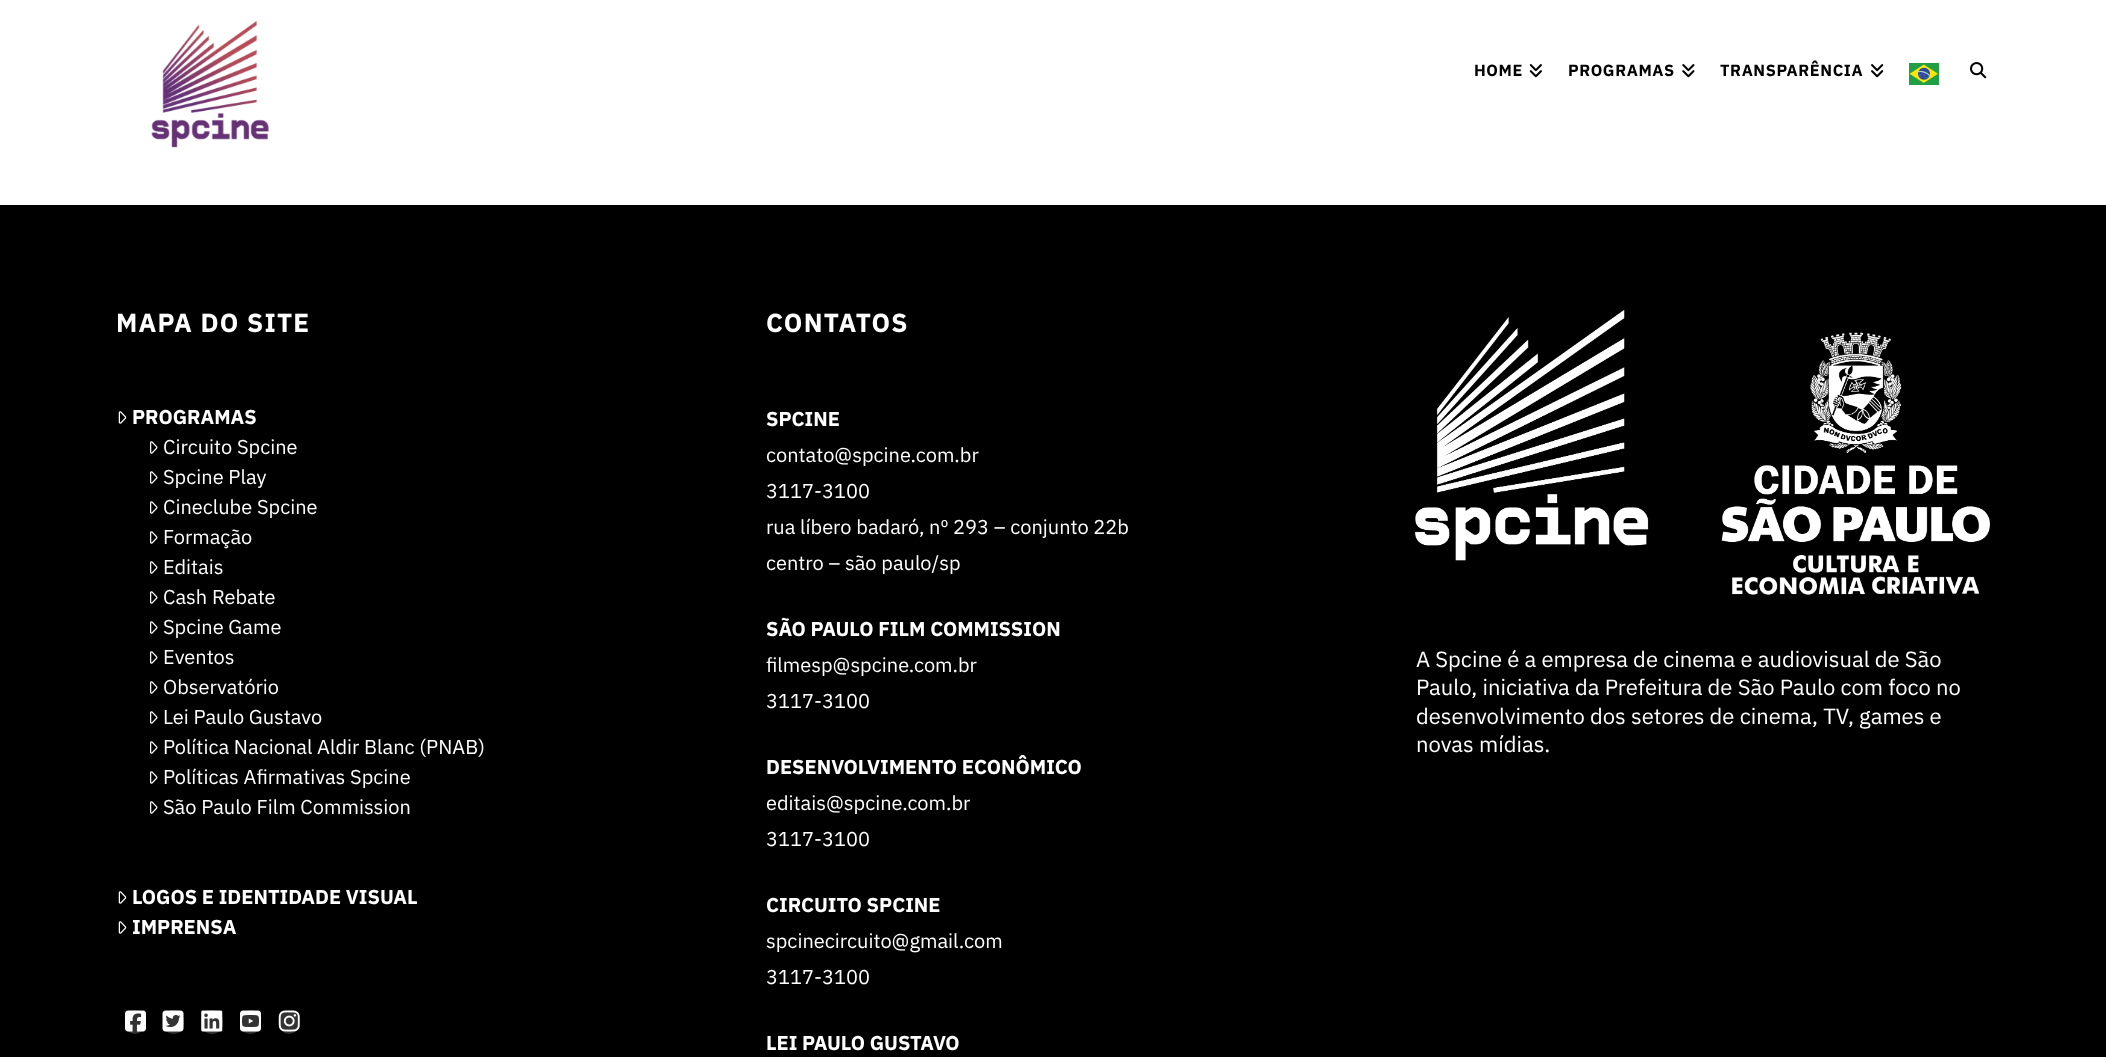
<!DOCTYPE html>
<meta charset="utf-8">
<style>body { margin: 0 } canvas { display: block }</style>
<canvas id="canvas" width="2106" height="1057"></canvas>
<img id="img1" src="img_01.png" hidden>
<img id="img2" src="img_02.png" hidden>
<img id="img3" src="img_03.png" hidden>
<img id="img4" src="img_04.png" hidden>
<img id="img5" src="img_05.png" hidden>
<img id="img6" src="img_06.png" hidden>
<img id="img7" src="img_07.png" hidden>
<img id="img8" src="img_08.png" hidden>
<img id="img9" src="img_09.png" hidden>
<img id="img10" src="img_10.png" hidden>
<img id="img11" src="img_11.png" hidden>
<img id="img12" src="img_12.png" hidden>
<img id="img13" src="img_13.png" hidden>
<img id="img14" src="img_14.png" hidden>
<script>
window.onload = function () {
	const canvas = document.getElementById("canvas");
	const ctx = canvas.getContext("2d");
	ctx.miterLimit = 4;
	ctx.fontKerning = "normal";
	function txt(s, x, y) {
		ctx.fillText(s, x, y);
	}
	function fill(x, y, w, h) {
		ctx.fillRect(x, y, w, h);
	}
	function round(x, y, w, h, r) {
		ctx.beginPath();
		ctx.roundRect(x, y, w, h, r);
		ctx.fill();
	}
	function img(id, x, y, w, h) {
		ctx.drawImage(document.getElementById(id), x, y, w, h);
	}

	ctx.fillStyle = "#FFFFFF";
	fill(0, 0, 2106, 1057);
	img("img1", 151, 21, 118, 127);
	img("img2", 1529, 64, 13, 14);
	img("img3", 1682, 64, 13, 14);
	img("img4", 1871, 64, 13, 14);
	img("img5", 1909, 63, 30, 22);
	img("img6", 1970, 62, 17, 17);
	ctx.fillStyle = "#000000";
	fill(0, 205, 2106, 852);
	img("img7", 118, 411, 9, 13);
	img("img8", 150, 441, 8, 13);
	img("img8", 150, 471, 8, 13);
	img("img8", 150, 501, 8, 13);
	img("img8", 150, 531, 8, 13);
	img("img8", 150, 561, 8, 13);
	img("img8", 150, 591, 8, 13);
	img("img8", 150, 621, 8, 13);
	img("img8", 150, 651, 8, 13);
	img("img8", 150, 681, 8, 13);
	img("img8", 150, 711, 8, 13);
	img("img8", 150, 741, 8, 13);
	img("img8", 150, 771, 8, 13);
	img("img8", 150, 801, 8, 13);
	img("img7", 118, 891, 9, 13);
	img("img7", 118, 921, 9, 13);
	ctx.fillStyle = "#333333";
	round(125, 1010, 20, 24, 10);
	img("img9", 125, 1010, 21, 22);
	round(163, 1010, 21, 24, 10.5);
	img("img10", 162, 1010, 22, 22);
	round(201, 1010, 22, 24, 11);
	img("img11", 201, 1010, 22, 22);
	round(240, 1010, 21, 24, 10.5);
	img("img12", 240, 1010, 21, 22);
	round(279, 1010, 20, 24, 10);
	img("img13", 278, 1010, 22, 22);
	img("img14", 1415, 309, 575, 286);
	ctx.letterSpacing = "0.6px";
	ctx.font = "bold 16.25px IBM Plex Sans";
	ctx.fillStyle = "#000000";
	txt("HOME", 1474, 76);
	txt("PROGRAMAS", 1568, 76);
	txt("TRANSPARÊNCIA", 1720, 76);
	ctx.letterSpacing = "1.25px";
	ctx.font = "bold 26px IBM Plex Sans";
	ctx.fillStyle = "#FFFFFF";
	txt("MAPA DO SITE", 116, 332);
	ctx.letterSpacing = "0px";
	ctx.font = "bold 20px IBM Plex Sans";
	txt("PROGRAMAS", 132, 424);
	ctx.font = "20px IBM Plex Sans";
	txt("Circuito Spcine", 163, 454);
	txt("Spcine Play", 163, 484);
	txt("Cineclube Spcine", 163, 514);
	txt("Formação", 163, 544);
	txt("Editais", 163, 574);
	txt("Cash Rebate", 163, 604);
	txt("Spcine Game", 163, 634);
	txt("Eventos", 163, 664);
	txt("Observatório", 163, 694);
	txt("Lei Paulo Gustavo", 163, 724);
	txt("Política Nacional Aldir Blanc (PNAB)", 163, 754);
	txt("Políticas Afirmativas Spcine", 163, 784);
	txt("São Paulo Film Commission", 163, 814);
	ctx.font = "bold 20px IBM Plex Sans";
	txt("LOGOS E IDENTIDADE VISUAL", 132, 904);
	txt("IMPRENSA", 132, 934);
	ctx.letterSpacing = "1.25px";
	ctx.font = "bold 26px IBM Plex Sans";
	txt("CONTATOS", 766, 332);
	ctx.letterSpacing = "0px";
	ctx.font = "bold 20px IBM Plex Sans";
	txt("SPCINE", 766, 426);
	ctx.font = "20px IBM Plex Sans";
	txt("contato@spcine.com.br", 766, 462);
	txt("3117-3100", 766, 498);
	txt("rua líbero badaró, nº 293 – conjunto 22b", 766, 534);
	txt("centro – são paulo/sp", 766, 570);
	ctx.font = "bold 20px IBM Plex Sans";
	txt("SÃO PAULO FILM COMMISSION", 766, 636);
	ctx.font = "20px IBM Plex Sans";
	txt("filmesp@spcine.com.br", 766, 672);
	txt("3117-3100", 766, 708);
	ctx.font = "bold 20px IBM Plex Sans";
	txt("DESENVOLVIMENTO ECONÔMICO", 766, 774);
	ctx.font = "20px IBM Plex Sans";
	txt("editais@spcine.com.br", 766, 810);
	txt("3117-3100", 766, 846);
	ctx.font = "bold 20px IBM Plex Sans";
	txt("CIRCUITO SPCINE", 766, 912);
	ctx.font = "20px IBM Plex Sans";
	txt("spcinecircuito@gmail.com", 766, 948);
	txt("3117-3100", 766, 984);
	ctx.font = "bold 20px IBM Plex Sans";
	txt("LEI PAULO GUSTAVO", 766, 1050);
	ctx.font = "22px IBM Plex Sans";
	txt("A Spcine é a empresa de cinema e audiovisual de São", 1416, 667);
	txt("Paulo, iniciativa da Prefeitura de São Paulo com foco no", 1416, 695);
	txt("desenvolvimento dos setores de cinema, TV, games e", 1416, 724);
	txt("novas mídias.", 1416, 752);
};
</script>
